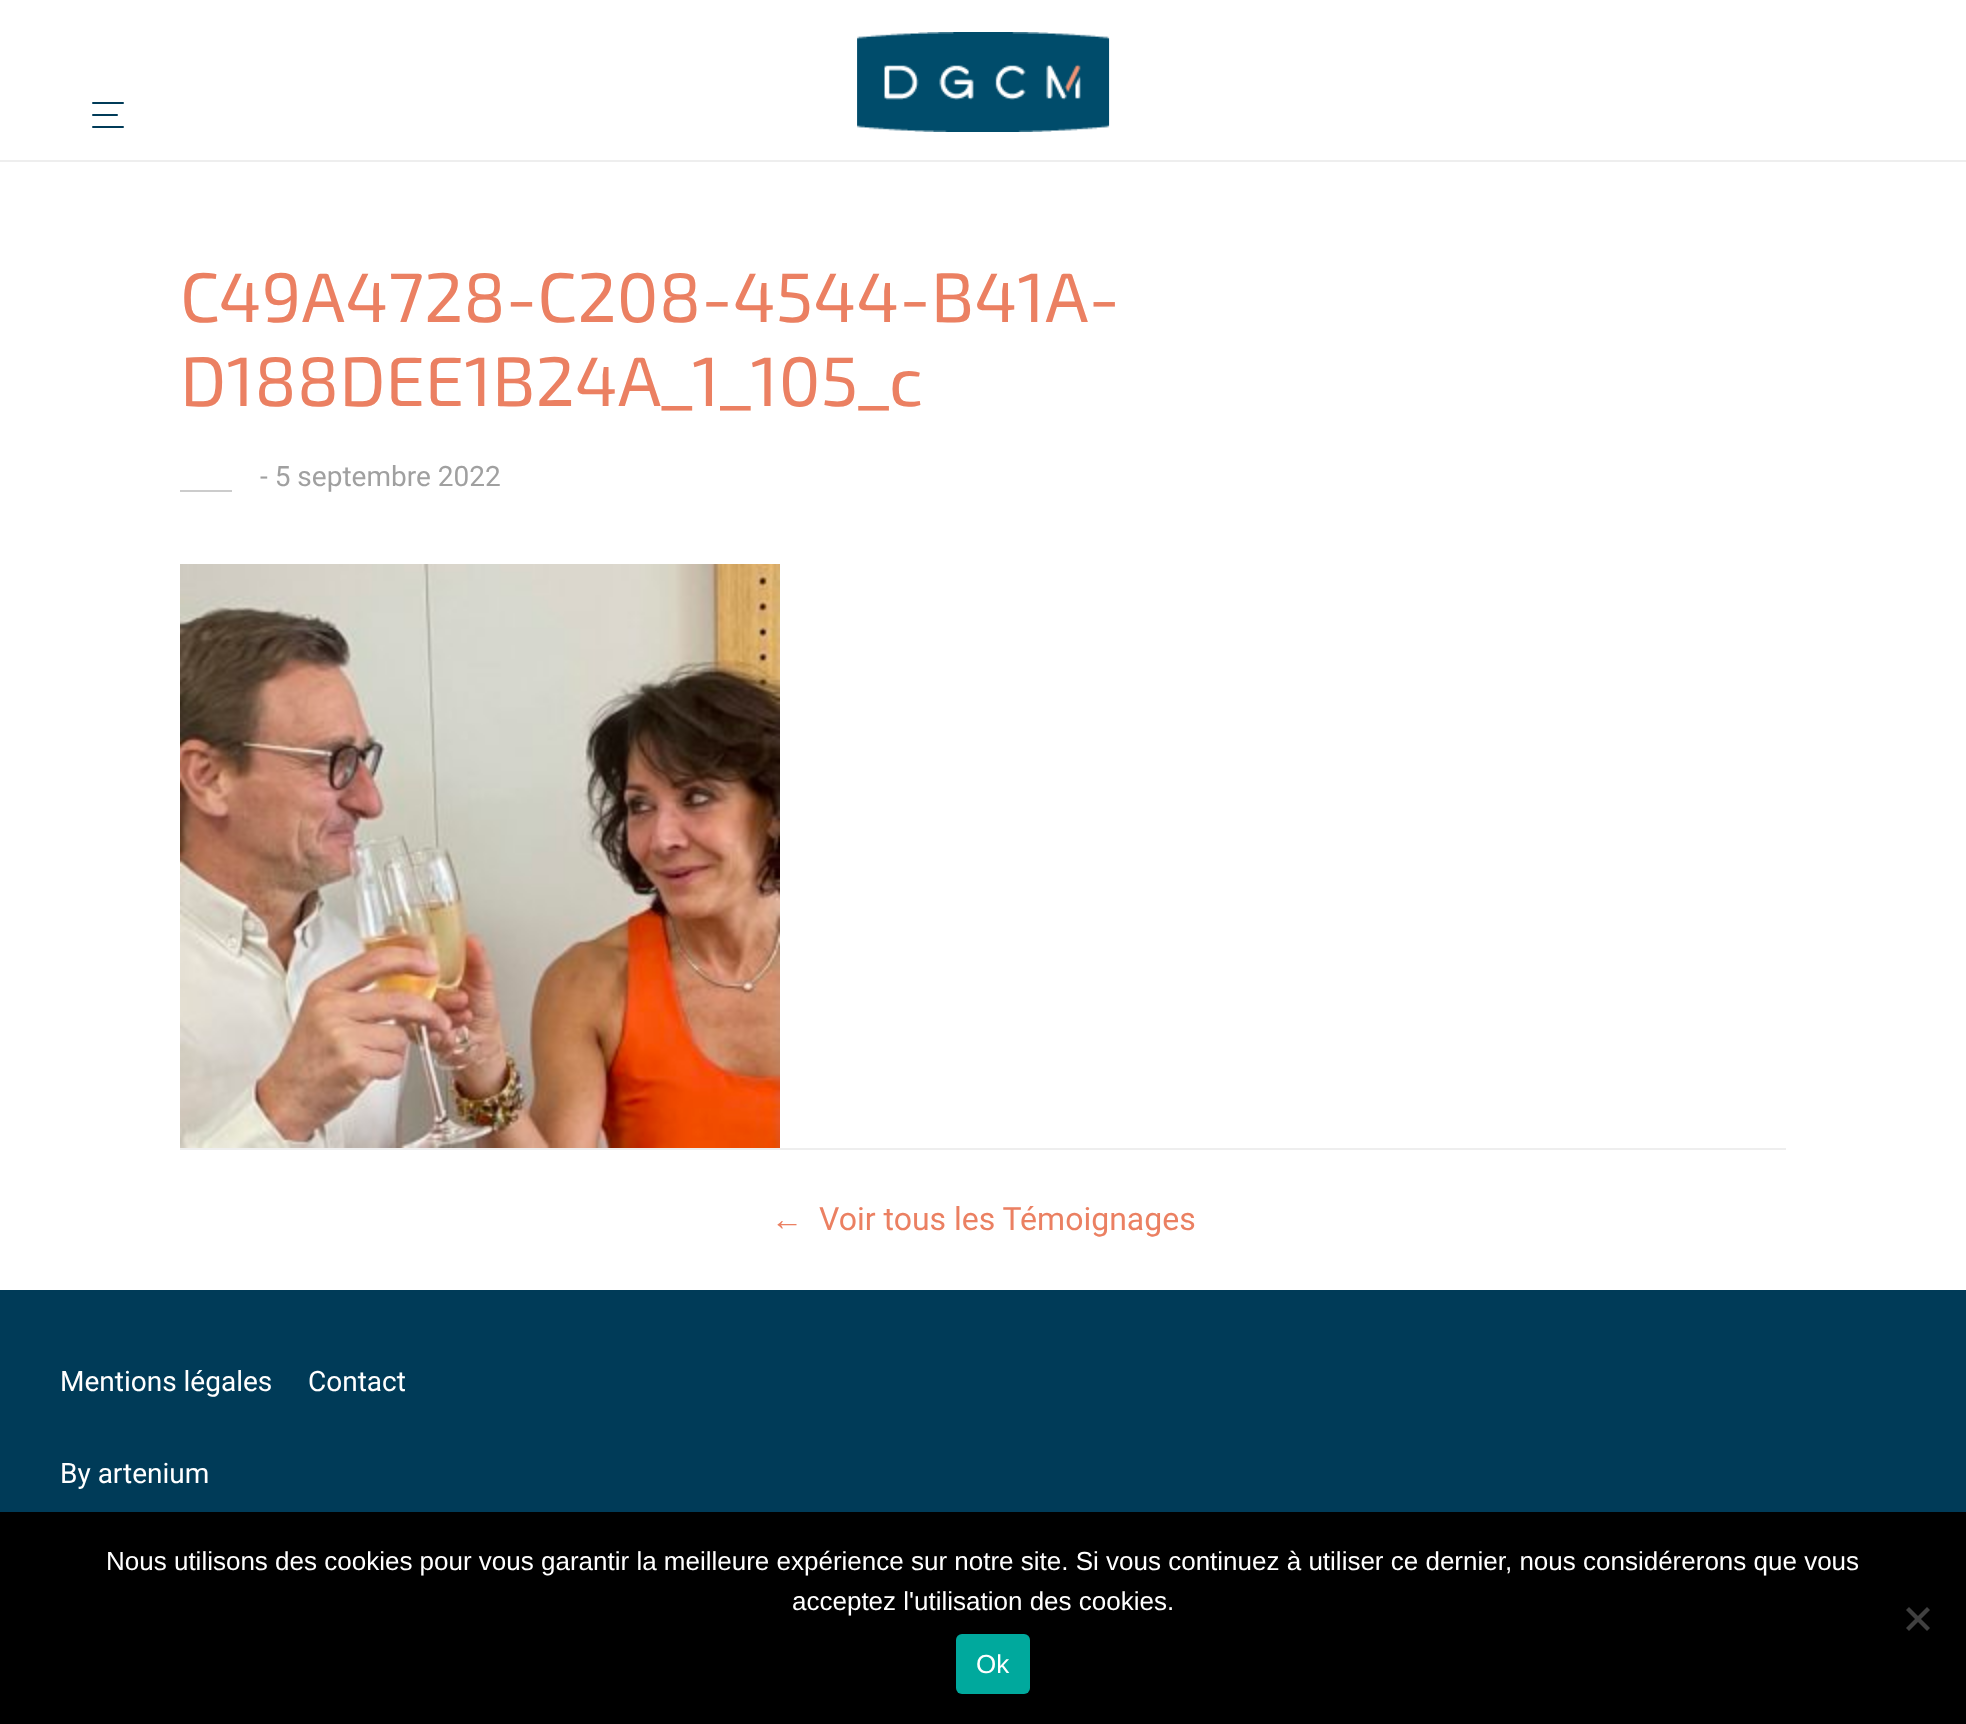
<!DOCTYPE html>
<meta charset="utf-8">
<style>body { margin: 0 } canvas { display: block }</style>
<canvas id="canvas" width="1966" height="1724"></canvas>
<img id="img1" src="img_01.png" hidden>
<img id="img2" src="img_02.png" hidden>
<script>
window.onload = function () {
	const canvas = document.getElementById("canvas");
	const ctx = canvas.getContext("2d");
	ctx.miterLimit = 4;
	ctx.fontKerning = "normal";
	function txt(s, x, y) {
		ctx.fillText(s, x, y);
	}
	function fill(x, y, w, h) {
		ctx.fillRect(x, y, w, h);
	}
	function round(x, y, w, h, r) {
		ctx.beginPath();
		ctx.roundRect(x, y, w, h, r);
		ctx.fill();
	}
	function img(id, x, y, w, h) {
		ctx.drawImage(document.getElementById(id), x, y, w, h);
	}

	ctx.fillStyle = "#FFFFFF";
	fill(0, 0, 1966, 1724);
	ctx.fillStyle = "#EEEEEE";
	fill(0, 160, 1966, 2);
	ctx.fillStyle = "#003B58";
	round(92, 102, 32, 2, 1);
	round(92, 114, 26, 2, 1);
	round(92, 126, 32, 2, 1);
	img("img1", 857, 32, 253, 100);
	ctx.fillStyle = "#CCCCCC";
	fill(180, 490, 52, 2);
	img("img2", 180, 564, 600, 584);
	ctx.fillStyle = "#EEEEEE";
	fill(180, 1148, 1606, 2);
	ctx.fillStyle = "#003B58";
	fill(0, 1290, 1966, 222);
	ctx.fillStyle = "#000000";
	fill(0, 1512, 1966, 212);
	ctx.fillStyle = "#404040";
	ctx.beginPath();
	ctx.moveTo(1927, 1607);
	ctx.lineTo(1930, 1610);
	ctx.lineTo(1909, 1631);
	ctx.lineTo(1906, 1628);
	ctx.closePath();
	ctx.fill();
	ctx.beginPath();
	ctx.moveTo(1906, 1610);
	ctx.lineTo(1909, 1607);
	ctx.lineTo(1930, 1628);
	ctx.lineTo(1927, 1631);
	ctx.closePath();
	ctx.fill();
	ctx.fillStyle = "#00A99D";
	round(956, 1634, 74, 60, 6);
	ctx.font = "70px 'Exo 2'";
	ctx.fillStyle = "#EB8062";
	txt("C49A4728-C208-4544-B41A-", 180, 322);
	txt("D188DEE1B24A_1_105_c", 180, 406);
	ctx.font = "28px Roboto";
	ctx.fillStyle = "#A0A0A0";
	txt("- 5 septembre 2022", 260, 486);
	ctx.font = "32px Liberation Sans";
	ctx.fillStyle = "#EB8062";
	txt("←", 771, 1230);
	ctx.font = "32px Roboto";
	txt("Voir tous les Témoignages", 819, 1230);
	ctx.font = "28px Roboto";
	ctx.fillStyle = "#FFFFFF";
	txt("Mentions légales", 60, 1391);
	txt("Contact", 308, 1391);
	txt("By artenium", 60, 1483);
	ctx.font = "26px Liberation Sans";
	txt("Nous utilisons des cookies pour vous garantir la meilleure expérience sur notre site. Si vous continuez à utiliser ce dernier, nous considérerons que vous", 106, 1570);
	txt("acceptez l'utilisation des cookies.", 792, 1610);
	txt("Ok", 976, 1673);
};
</script>
